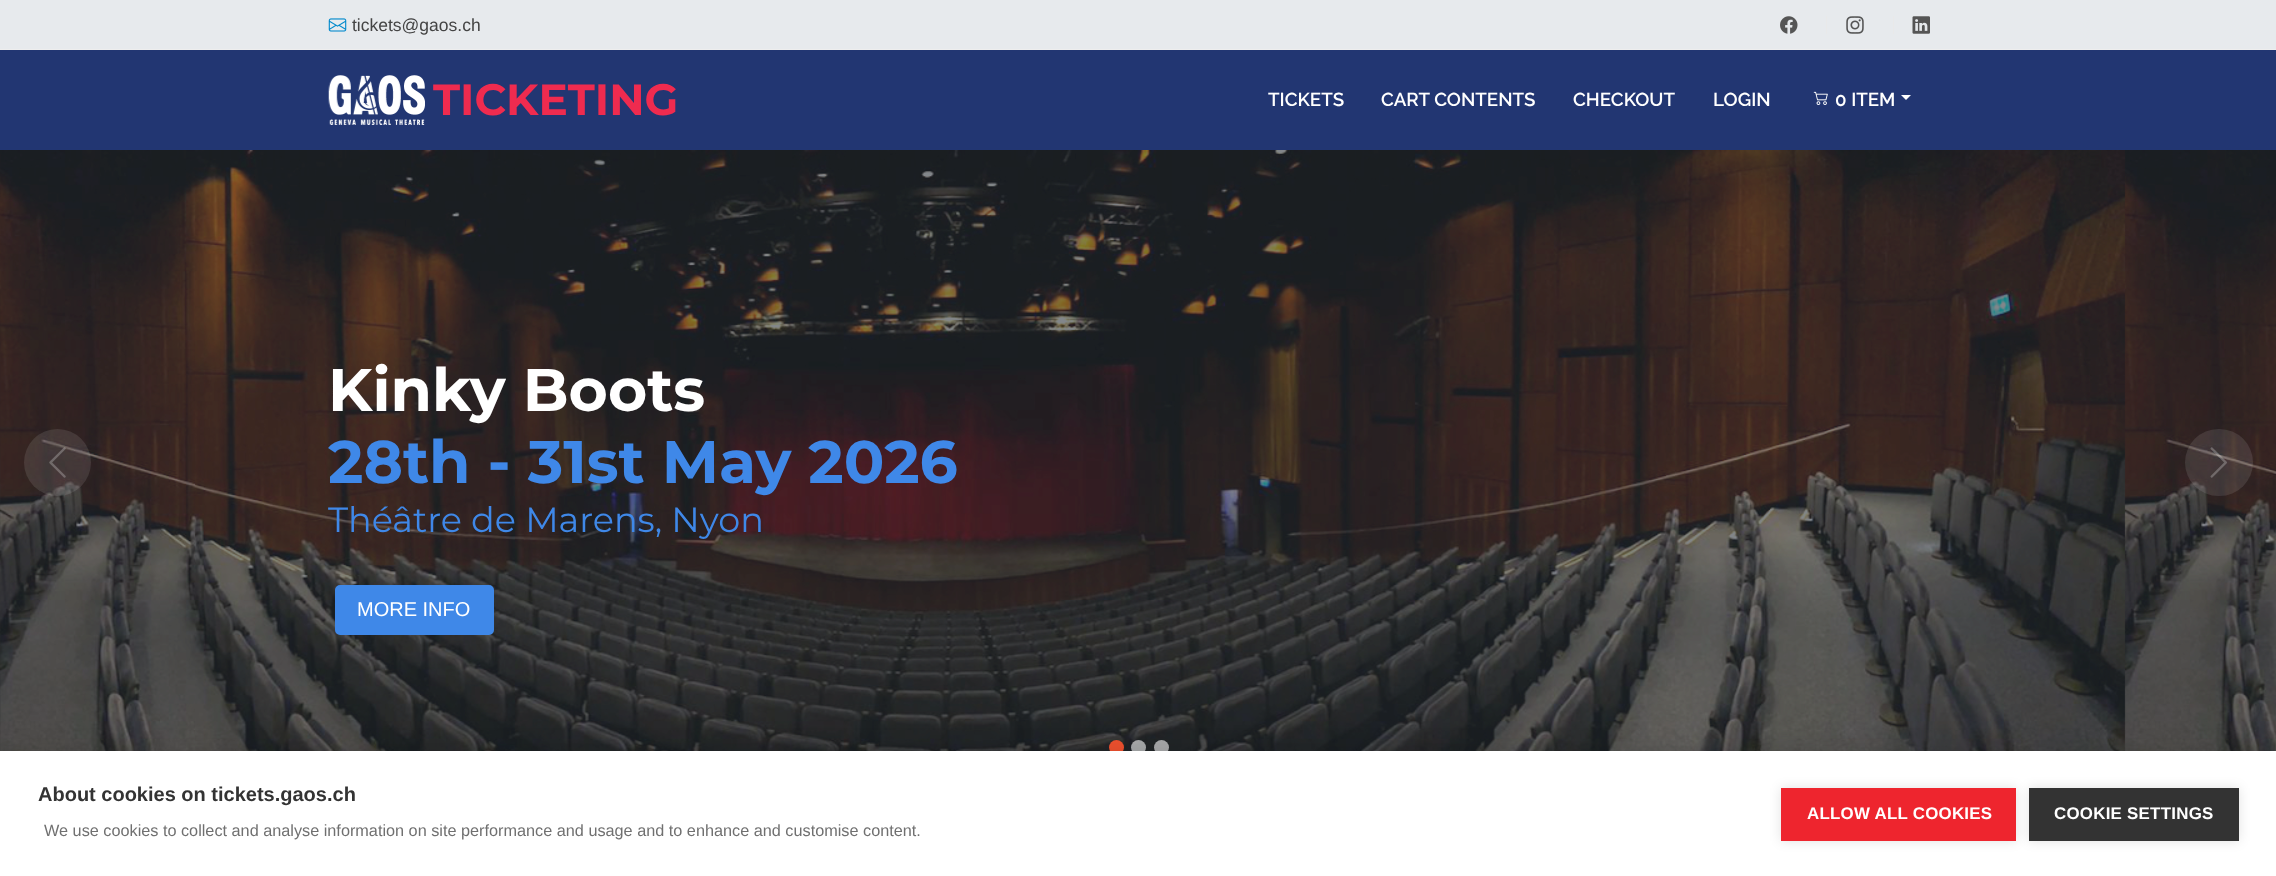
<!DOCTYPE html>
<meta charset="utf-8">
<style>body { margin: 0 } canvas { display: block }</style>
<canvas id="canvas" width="2276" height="876"></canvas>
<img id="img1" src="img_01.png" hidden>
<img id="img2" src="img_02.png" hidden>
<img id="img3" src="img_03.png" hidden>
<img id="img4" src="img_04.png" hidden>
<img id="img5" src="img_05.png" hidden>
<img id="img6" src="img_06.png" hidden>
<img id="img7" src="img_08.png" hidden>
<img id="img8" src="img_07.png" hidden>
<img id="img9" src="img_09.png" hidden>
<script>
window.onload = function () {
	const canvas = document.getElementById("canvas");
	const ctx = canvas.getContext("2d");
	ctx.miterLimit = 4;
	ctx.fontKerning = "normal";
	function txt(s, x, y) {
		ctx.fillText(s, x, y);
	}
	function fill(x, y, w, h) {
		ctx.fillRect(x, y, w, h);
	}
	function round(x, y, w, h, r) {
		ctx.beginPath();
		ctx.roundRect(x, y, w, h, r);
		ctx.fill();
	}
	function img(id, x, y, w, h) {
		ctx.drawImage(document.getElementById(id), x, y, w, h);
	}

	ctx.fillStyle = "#223672";
	fill(0, 0, 2276, 876);
	ctx.fillStyle = "#E7EAED";
	fill(0, 0, 2276, 49);
	ctx.fillStyle = "#EEEEEE";
	fill(0, 49, 2276, 1);
	img("img1", 328, 18, 19, 14);
	img("img2", 1780, 16, 18, 18);
	ctx.fillStyle = "#E9E9E9";
	fill(1826, 16, 1, 18);
	img("img3", 1846, 16, 18, 18);
	fill(1893, 16, 1, 18);
	img("img4", 1912, 16, 18, 18);
	img("img5", 328, 75, 97, 50);
	img("img6", 1813, 91, 15, 14);
	ctx.fillStyle = "#FFFFFF";
	ctx.beginPath();
	ctx.moveTo(1901, 95);
	ctx.lineTo(1911, 95);
	ctx.lineTo(1906, 100);
	ctx.closePath();
	ctx.fill();
	img("img7", 0, 150, 2276, 601);
	ctx.fillStyle = "rgba(255, 255, 255, 0.1)";
	ctx.beginPath();
	ctx.arc(57.5, 462.5, 33.5, 0, Math.PI * 2);
	ctx.fill();
	img("img8", 49, 447, 17, 31);
	ctx.fillStyle = "#3F88E8";
	ctx.beginPath();
	ctx.roundRect(336.5, 586.5, 156, 47, 3.5);
	ctx.fill();
	ctx.strokeStyle = "#3F88E8";
	ctx.lineWidth = 3;
	ctx.stroke();
	ctx.fillStyle = "rgba(255, 255, 255, 0.1)";
	round(2185, 429, 68, 67, 33.5);
	img("img9", 2210, 447, 17, 31);
	ctx.fillStyle = "#ED502E";
	ctx.beginPath();
	ctx.arc(1116.5, 747.5, 7.5, 0, Math.PI * 2);
	ctx.fill();
	ctx.fillStyle = "rgba(255, 255, 255, 0.6)";
	ctx.beginPath();
	ctx.arc(1138.5, 747.5, 7.5, 0, Math.PI * 2);
	ctx.fill();
	ctx.fillStyle = "#A6A7A8";
	ctx.beginPath();
	ctx.arc(1161.5, 747.5, 7.5, 0, Math.PI * 2);
	ctx.fill();
	ctx.fillStyle = "rgba(0, 0, 0, 0.1)";
	ctx.filter = "blur(12.5px)";
	ctx.beginPath();
	ctx.rect(0, 751, 2276, 125);
	ctx.fill();
	ctx.filter = "none";
	ctx.fillStyle = "#FFFFFF";
	fill(0, 751, 2276, 125);
	ctx.fillStyle = "rgba(0, 0, 0, 0.12)";
	ctx.filter = "blur(6px)";
	ctx.beginPath();
	ctx.rect(1781, 788, 235, 53);
	ctx.fill();
	ctx.filter = "none";
	ctx.fillStyle = "#EE252E";
	fill(1781, 788, 235, 53);
	ctx.fillStyle = "rgba(0, 0, 0, 0.12)";
	ctx.filter = "blur(6px)";
	ctx.beginPath();
	ctx.rect(2029, 788, 210, 53);
	ctx.fill();
	ctx.filter = "none";
	ctx.fillStyle = "#333333";
	fill(2029, 788, 210, 53);
	ctx.font = "17.5px Liberation Sans";
	ctx.fillStyle = "#444444";
	txt("tickets@gaos.ch", 352, 31);
	ctx.font = "bold 43.75px Montserrat";
	ctx.fillStyle = "#EF2B4F";
	txt("TICKETING", 433, 115);
	ctx.font = "600 18.75px Raleway";
	ctx.fillStyle = "#FFFFFF";
	txt("TICKETS", 1268, 106);
	txt("CART CONTENTS", 1381, 106);
	txt("CHECKOUT", 1573, 106);
	txt("LOGIN", 1713, 106);
	txt("0 ITEM", 1835, 106);
	ctx.font = "bold 60px Montserrat";
	txt("Kinky Boots", 328, 411);
	ctx.fillStyle = "#3F88E8";
	txt("28th - 31st May 2026", 328, 483);
	ctx.font = "35px Montserrat";
	txt("Théâtre de Marens, Nyon", 328, 532);
	ctx.font = "20px Liberation Sans";
	ctx.fillStyle = "#FFFFFF";
	txt("MORE INFO", 357, 616);
	ctx.font = "bold 20px Liberation Sans";
	ctx.fillStyle = "#333333";
	txt("About cookies on tickets.gaos.ch", 38, 801);
	ctx.font = "16.25px Liberation Sans";
	ctx.fillStyle = "#707070";
	txt("We use cookies to collect and analyse information on site performance and usage and to enhance and customise content.", 44, 836);
	ctx.letterSpacing = "0.25px";
	ctx.font = "bold 16.9px Liberation Sans";
	ctx.fillStyle = "#FFFFFF";
	txt("ALLOW ALL COOKIES", 1807, 819);
	txt("COOKIE SETTINGS", 2054, 819);
};
</script>
